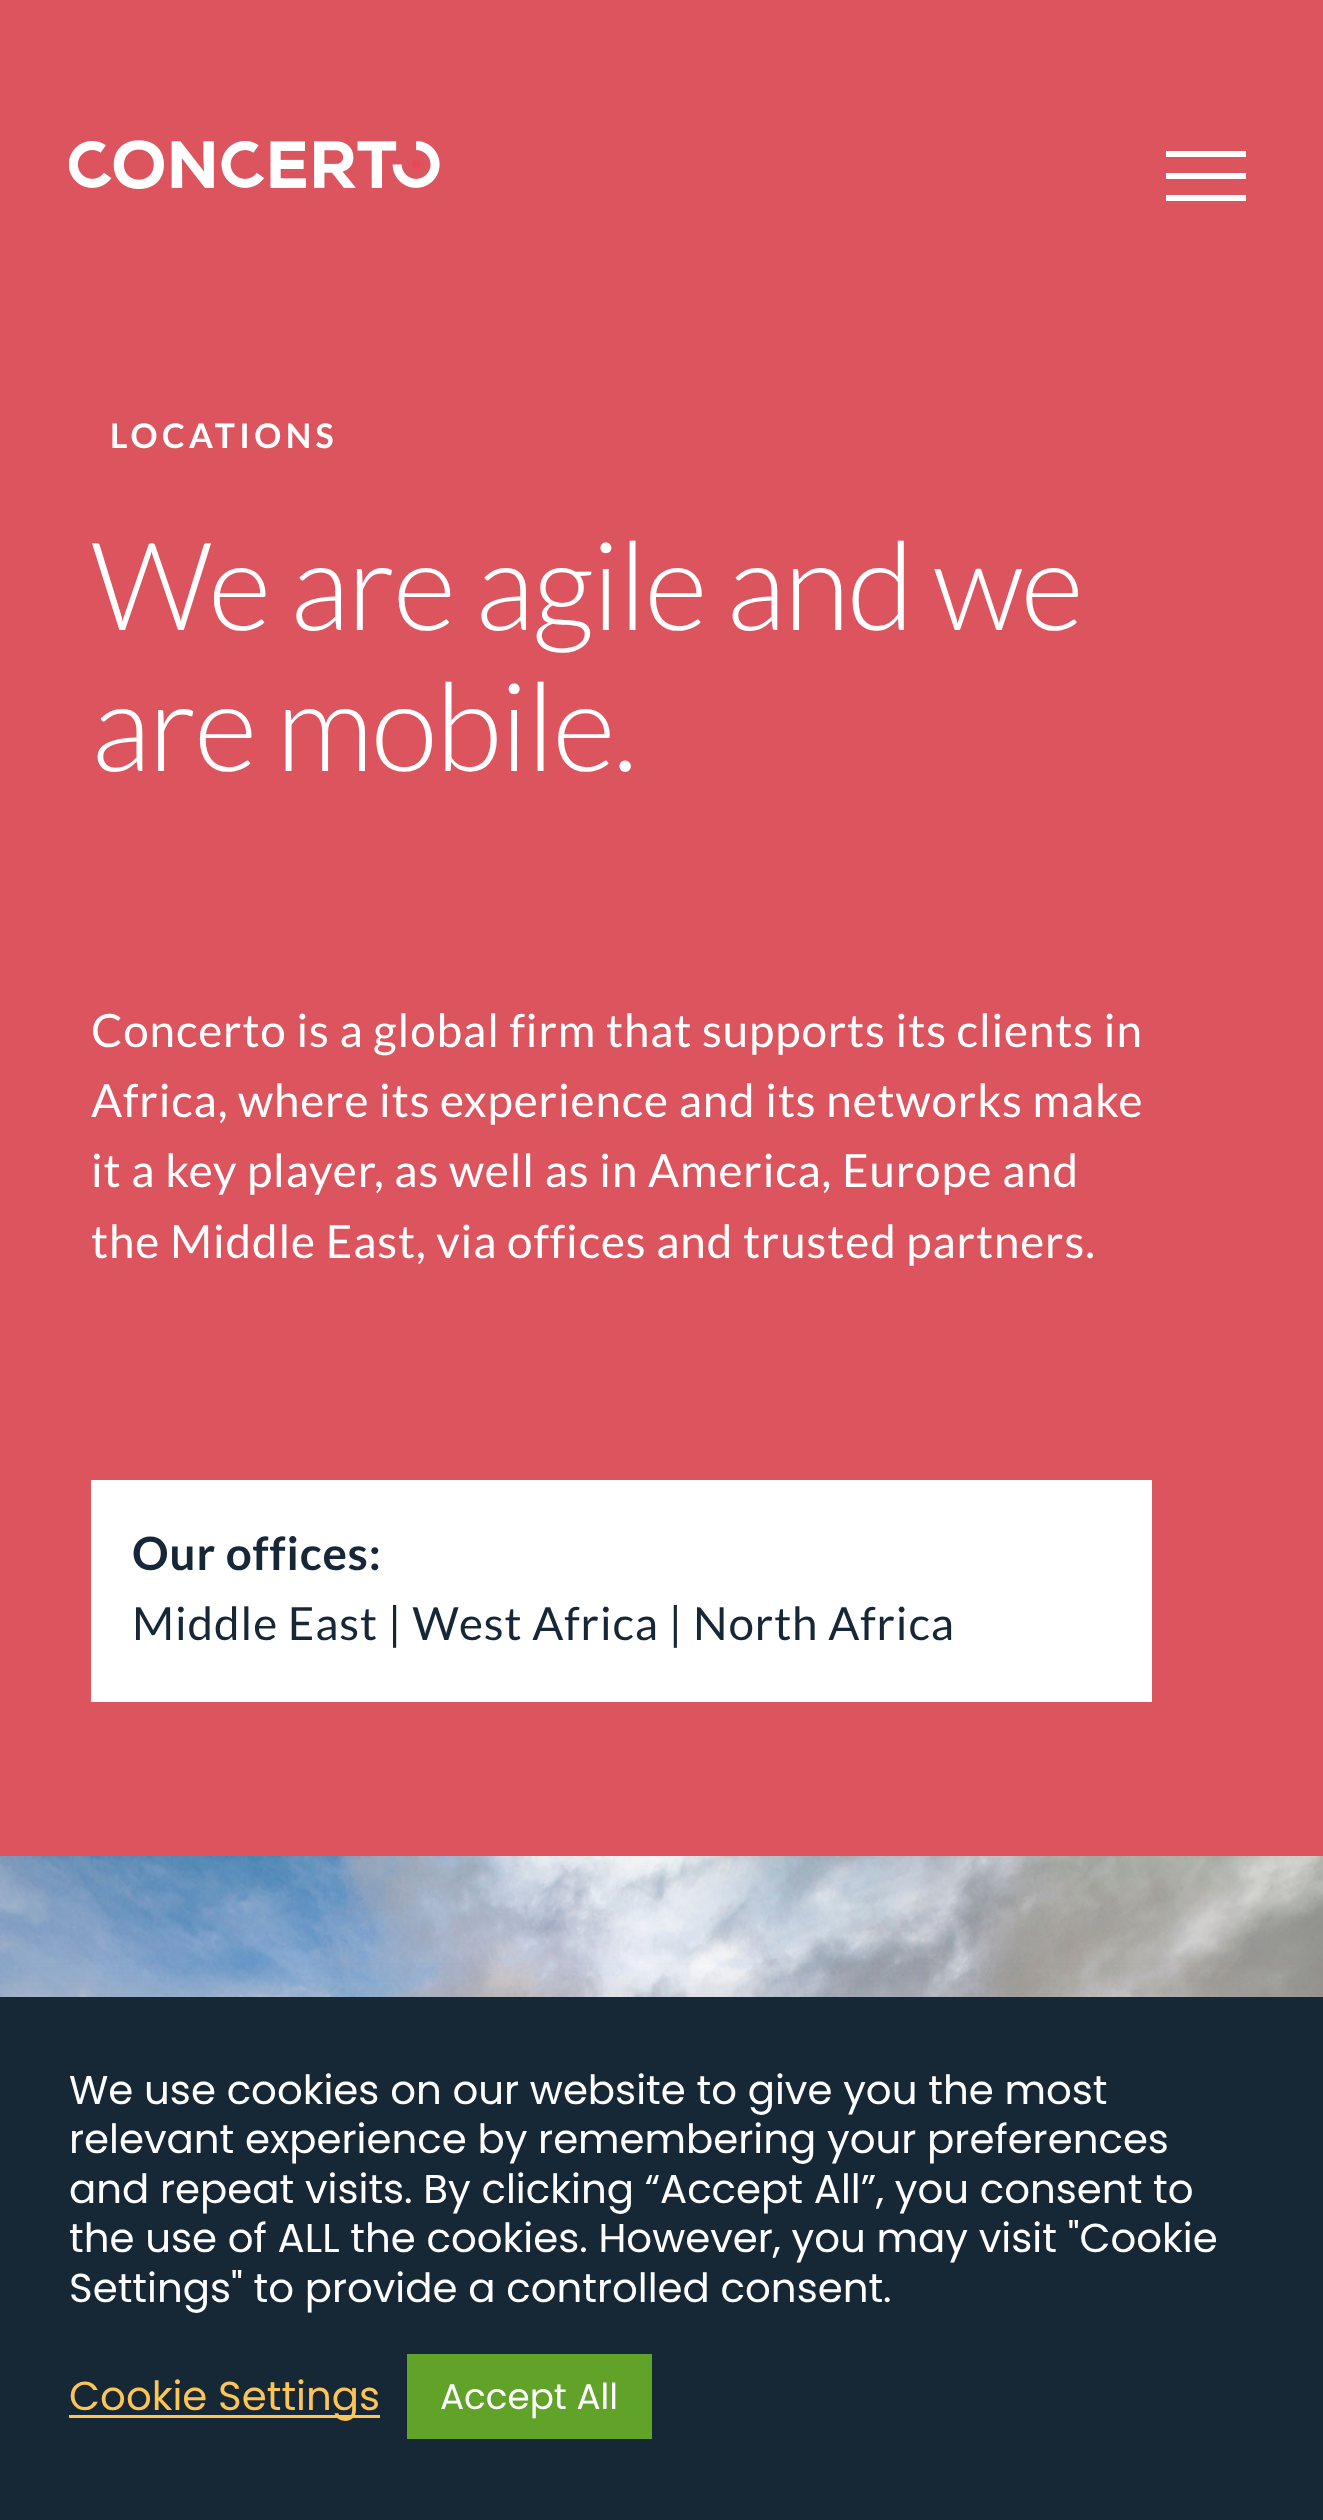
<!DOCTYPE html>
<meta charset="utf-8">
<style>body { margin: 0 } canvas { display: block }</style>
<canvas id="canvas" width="1323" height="2520"></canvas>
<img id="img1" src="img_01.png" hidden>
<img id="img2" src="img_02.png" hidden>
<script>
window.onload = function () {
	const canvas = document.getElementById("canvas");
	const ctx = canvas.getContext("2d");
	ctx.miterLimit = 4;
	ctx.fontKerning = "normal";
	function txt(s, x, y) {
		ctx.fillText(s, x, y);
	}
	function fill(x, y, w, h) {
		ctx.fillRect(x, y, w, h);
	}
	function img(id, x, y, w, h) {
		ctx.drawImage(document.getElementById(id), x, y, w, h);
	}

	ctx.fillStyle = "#DC545D";
	fill(0, 0, 1323, 2520);
	img("img1", 69, 140, 371, 49);
	ctx.fillStyle = "#FFFFFF";
	fill(1166, 151, 80, 6);
	fill(1166, 173, 80, 6);
	fill(1166, 195, 80, 6);
	fill(91, 1480, 1061, 222);
	img("img2", 0, 1856, 1323, 141);
	ctx.fillStyle = "rgba(172, 171, 171, 0.3)";
	ctx.filter = "blur(14px)";
	ctx.beginPath();
	ctx.rect(0, 1994, 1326, 525);
	ctx.fill();
	ctx.filter = "none";
	ctx.fillStyle = "#162736";
	fill(0, 1997, 1323, 523);
	ctx.fillStyle = "#FDC555";
	fill(69, 2415, 311, 3);
	ctx.fillStyle = "#61A229";
	fill(407, 2354, 245, 85);
	ctx.letterSpacing = "4.4px";
	ctx.font = "bold 33.75px Lato";
	ctx.fillStyle = "#FFFFFF";
	txt("LOCATIONS", 110, 448);
	ctx.letterSpacing = "-2.5px";
	ctx.font = "300 122.75px Lato";
	txt("We are agile and we", 91, 630);
	txt("are mobile.", 91, 771);
	ctx.letterSpacing = "0.9px";
	ctx.font = "45.75px Lato";
	txt("Concerto is a global firm that supports its clients in", 91, 1047);
	txt("Africa, where its experience and its networks make", 91, 1117);
	txt("it a key player, as well as in America, Europe and", 91, 1187);
	txt("the Middle East, via offices and trusted partners.", 91, 1258);
	ctx.font = "bold 45.75px Lato";
	ctx.fillStyle = "#162737";
	txt("Our offices:", 132, 1570);
	ctx.font = "45.75px Lato";
	txt("Middle East | West Africa | North Africa", 132, 1640);
	ctx.letterSpacing = "0px";
	ctx.font = "40.3px Poppins";
	ctx.fillStyle = "#FFFFFF";
	txt("We use cookies on our website to give you the most", 69, 2104);
	txt("relevant experience by remembering your preferences", 69, 2153);
	txt("and repeat visits. By clicking “Accept All”, you consent to", 69, 2203);
	txt("the use of ALL the cookies. However, you may visit \"Cookie", 69, 2252);
	txt("Settings\" to provide a controlled consent.", 69, 2302);
	ctx.fillStyle = "#FDC555";
	txt("Cookie Settings", 69, 2410);
	ctx.font = "35.75px Poppins";
	ctx.fillStyle = "#FFFFFF";
	txt("Accept All", 440, 2409);
};
</script>
